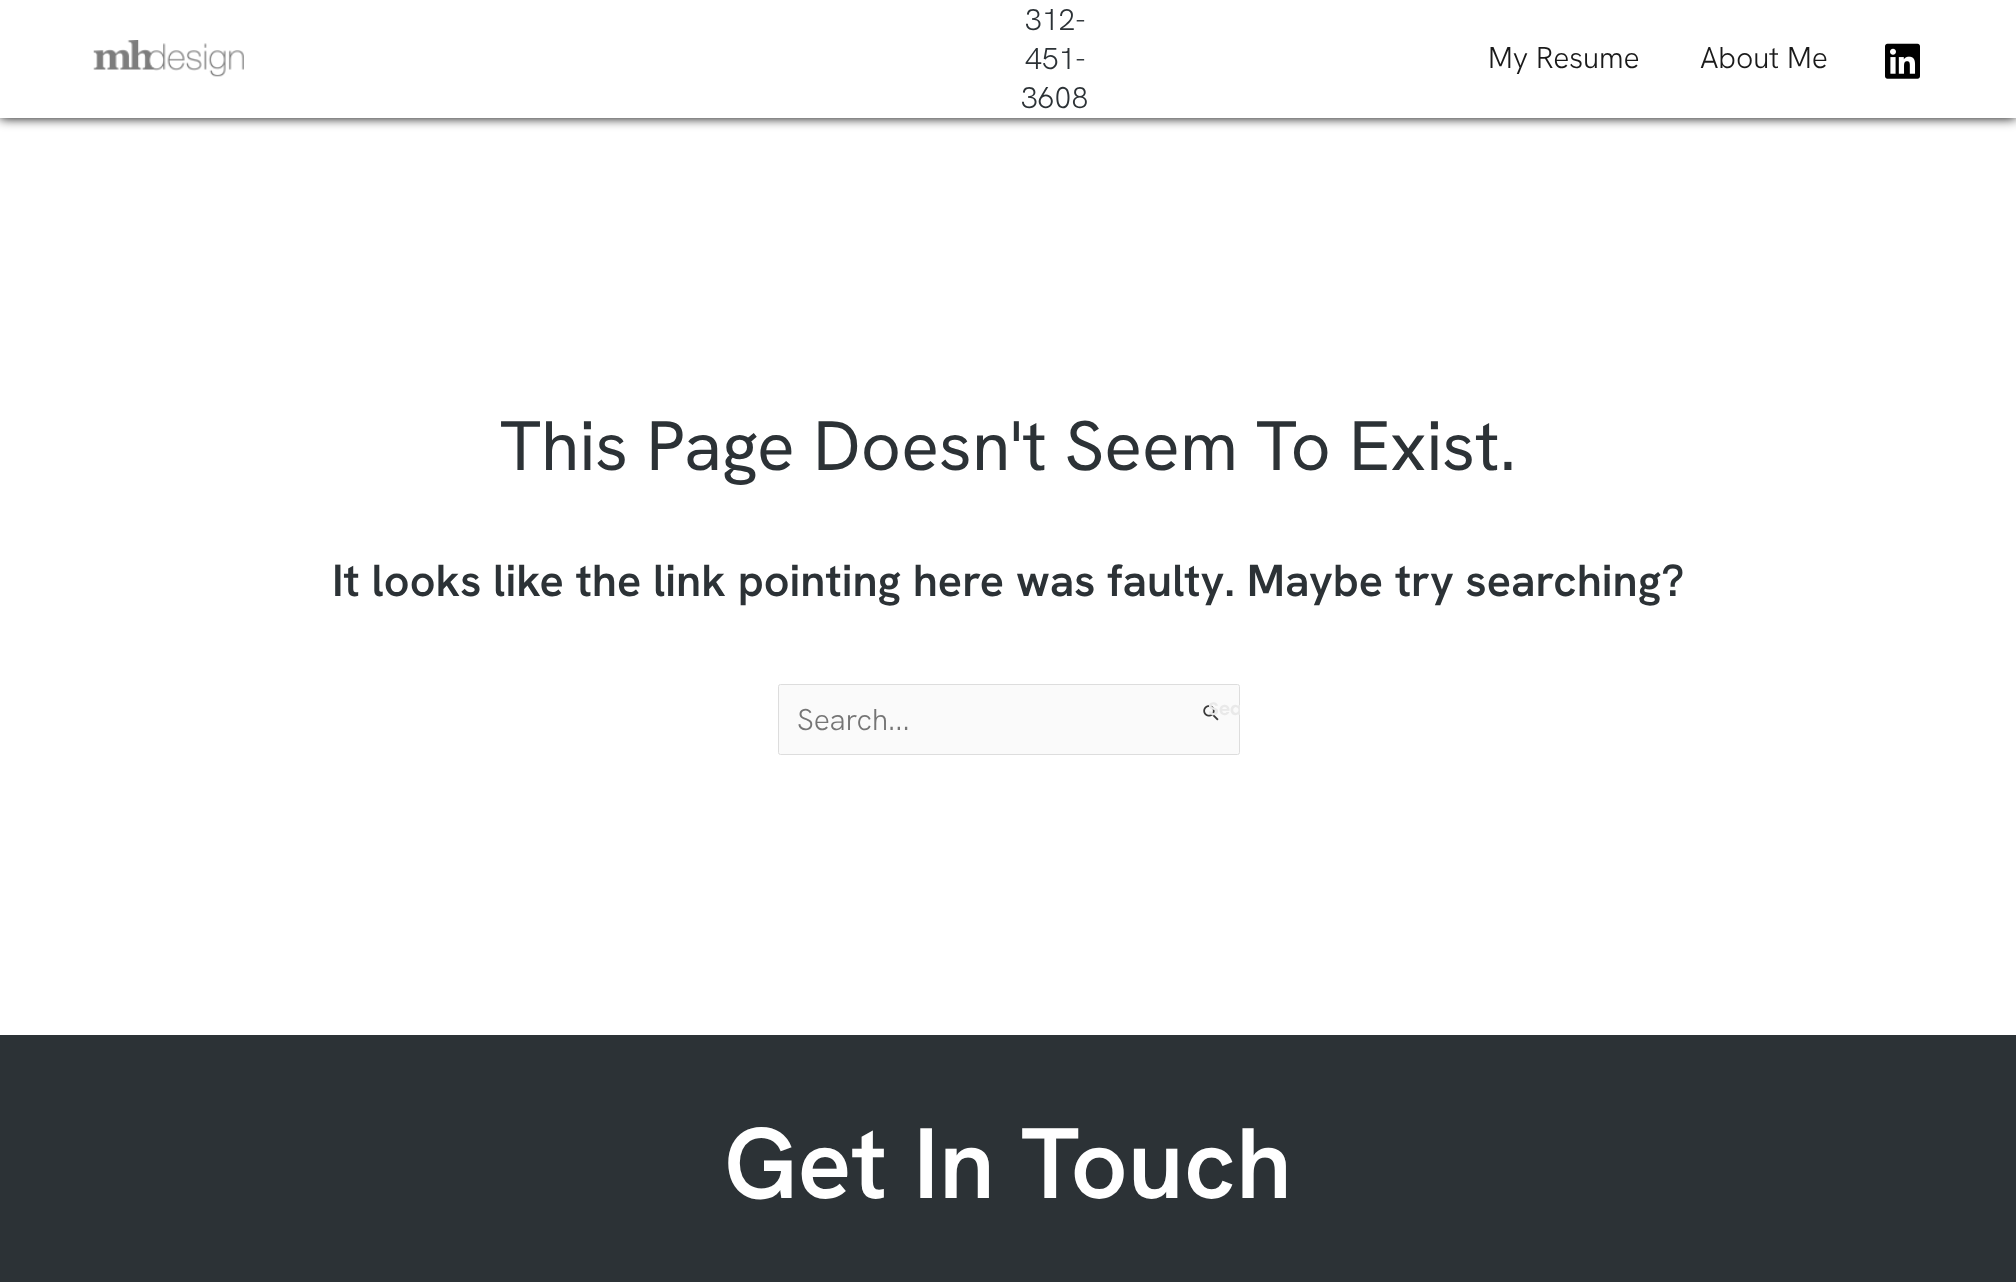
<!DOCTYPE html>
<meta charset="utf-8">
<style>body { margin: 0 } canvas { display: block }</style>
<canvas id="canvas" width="2016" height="1282"></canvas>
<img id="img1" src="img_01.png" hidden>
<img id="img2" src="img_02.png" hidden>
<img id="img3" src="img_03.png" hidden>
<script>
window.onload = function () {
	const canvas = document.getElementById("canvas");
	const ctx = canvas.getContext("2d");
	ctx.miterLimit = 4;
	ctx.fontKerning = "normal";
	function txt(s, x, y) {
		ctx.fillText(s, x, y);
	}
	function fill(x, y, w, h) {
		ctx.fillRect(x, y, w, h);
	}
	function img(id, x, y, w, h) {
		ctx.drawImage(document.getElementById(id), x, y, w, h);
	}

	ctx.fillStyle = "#FFFFFF";
	fill(0, 0, 2016, 1282);
	ctx.fillStyle = "#000000";
	ctx.filter = "blur(6px)";
	ctx.beginPath();
	ctx.rect(0, 0, 2016, 118);
	ctx.fill();
	ctx.filter = "none";
	ctx.fillStyle = "#FFFFFF";
	fill(0, 0, 2016, 118);
	img("img1", 93, 40, 151, 37);
	img("img2", 1885, 43, 35, 36);
	ctx.fillStyle = "#FAFAFA";
	ctx.beginPath();
	ctx.roundRect(778.5, 684.5, 461, 70, 2);
	ctx.fill();
	ctx.strokeStyle = "#DDDDDD";
	ctx.stroke();
	img("img3", 1203, 705, 16, 16);
	ctx.fillStyle = "#2C3236";
	fill(0, 1035, 2016, 247);
	ctx.font = "300 30px Hanken Grotesk";
	txt("312-", 1025, 30);
	txt("451-", 1025, 69);
	txt("3608", 1021, 108);
	ctx.fillStyle = "#1A1A1A";
	txt("My Resume", 1488, 68);
	txt("About Me", 1700, 68);
	ctx.font = "70px Hanken Grotesk";
	ctx.fillStyle = "#2C3236";
	txt("This Page Doesn't Seem To Exist.", 500, 470);
	ctx.font = "600 45px Hanken Grotesk";
	txt("It looks like the link pointing here was faulty. Maybe try searching?", 332, 596);
	ctx.font = "300 30px Hanken Grotesk";
	ctx.fillStyle = "#757575";
	txt("Search...", 797, 730);
	ctx.save();
	ctx.beginPath();
	ctx.roundRect(1184, 684, 56, 50, 2.5);
	ctx.clip();
	ctx.font = "600 18px Poppins";
	ctx.fillStyle = "#E9E9E9";
	txt("Sea", 1208, 715);
	ctx.restore();
	ctx.font = "600 100px Hanken Grotesk";
	ctx.fillStyle = "#FFFFFF";
	txt("Get In Touch", 724, 1198);
};
</script>
